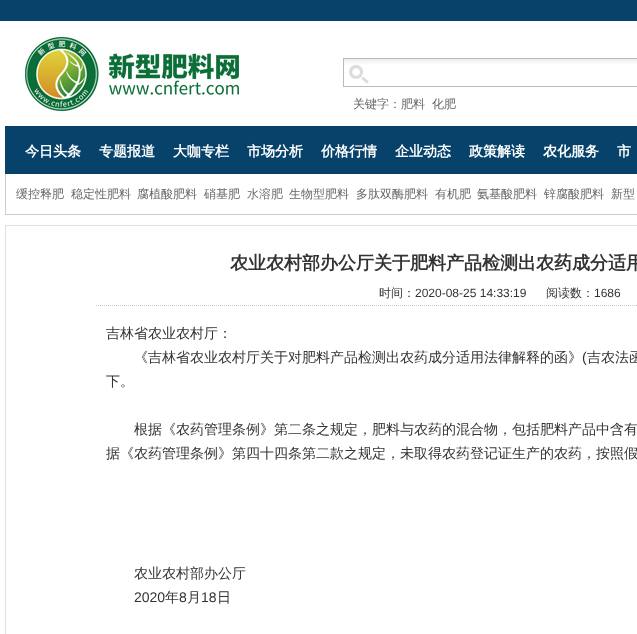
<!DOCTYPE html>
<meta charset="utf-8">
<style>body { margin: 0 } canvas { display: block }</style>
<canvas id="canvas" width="637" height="634"></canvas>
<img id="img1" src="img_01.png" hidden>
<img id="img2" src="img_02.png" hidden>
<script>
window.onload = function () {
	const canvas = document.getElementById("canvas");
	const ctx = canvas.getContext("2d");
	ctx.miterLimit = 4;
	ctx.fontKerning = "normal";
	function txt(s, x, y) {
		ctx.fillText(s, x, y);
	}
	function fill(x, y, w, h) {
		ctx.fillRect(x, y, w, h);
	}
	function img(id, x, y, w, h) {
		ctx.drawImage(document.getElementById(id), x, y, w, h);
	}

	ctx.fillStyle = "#FFFFFF";
	fill(0, 0, 637, 634);
	ctx.fillStyle = "#07426A";
	fill(0, 0, 637, 21);
	img("img1", 25, 37, 214, 74);
	img("img2", 343, 58, 294, 29);
	fill(5, 126, 632, 48);
	ctx.fillStyle = "#CCCCCC";
	fill(5, 214, 632, 1);
	fill(5, 174, 1, 41);
	ctx.strokeStyle = "#DCE1E5";
	ctx.strokeRect(5.5, 225.5, 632, 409);
	ctx.beginPath();
	ctx.moveTo(96, 305.5);
	ctx.lineTo(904, 305.5);
	ctx.strokeStyle = "#CCCCCC";
	ctx.setLineDash([1, 1]);
	ctx.stroke();
	ctx.font = "500 12px WenQuanYi Zen Hei";
	ctx.fillStyle = "#666666";
	txt("关键字：肥料", 353, 108);
	txt("化肥", 432, 108);
	ctx.font = "bold 14px WenQuanYi Zen Hei";
	ctx.fillStyle = "#FFFFFF";
	txt("今日头条", 25, 156);
	txt("专题报道", 99, 156);
	txt("大咖专栏", 173, 156);
	txt("市场分析", 247, 156);
	txt("价格行情", 321, 156);
	txt("企业动态", 395, 156);
	txt("政策解读", 469, 156);
	txt("农化服务", 543, 156);
	txt("市", 617, 156);
	ctx.font = "500 12px WenQuanYi Zen Hei";
	ctx.fillStyle = "#666666";
	txt("缓控释肥", 16, 198);
	txt("稳定性肥料", 71, 198);
	txt("腐植酸肥料", 137, 198);
	txt("硝基肥", 204, 198);
	txt("水溶肥", 247, 198);
	txt("生物型肥料", 289, 198);
	txt("多肽双酶肥料", 356, 198);
	txt("有机肥", 435, 198);
	txt("氨基酸肥料", 477, 198);
	txt("锌腐酸肥料", 544, 198);
	txt("新型", 611, 198);
	ctx.font = "bold 18px WenQuanYi Zen Hei";
	ctx.fillStyle = "#333333";
	txt("农业农村部办公厅关于肥料产品检测出农药成分适用", 230, 269);
	ctx.font = "500 12px WenQuanYi Zen Hei";
	txt("时间：", 379, 297);
	ctx.font = "12px Liberation Sans";
	txt("2020-08-25 14:33:19", 415, 297);
	ctx.font = "500 12px WenQuanYi Zen Hei";
	txt("阅读数：", 546, 297);
	ctx.font = "12px Liberation Sans";
	txt("1686", 594, 297);
	ctx.font = "500 14px WenQuanYi Zen Hei";
	txt("吉林省农业农村厅：", 106, 338);
	txt("《吉林省农业农村厅关于对肥料产品检测出农药成分适用法律解释的函》", 134, 362);
	ctx.font = "14px Liberation Sans";
	txt("(", 582, 362);
	ctx.font = "500 14px WenQuanYi Zen Hei";
	txt("吉农法函", 587, 362);
	txt("下。", 106, 386);
	txt("根据《农药管理条例》第二条之规定，肥料与农药的混合物，包括肥料产品中含有", 134, 434);
	txt("据《农药管理条例》第四十四条第二款之规定，未取得农药登记证生产的农药，按照假", 106, 458);
	txt("农业农村部办公厅", 134, 578);
	ctx.font = "14px Liberation Sans";
	txt("2020", 134, 602);
	ctx.font = "500 14px WenQuanYi Zen Hei";
	txt("年", 165, 602);
	ctx.font = "14px Liberation Sans";
	txt("8", 179, 602);
	ctx.font = "500 14px WenQuanYi Zen Hei";
	txt("月", 187, 602);
	ctx.font = "14px Liberation Sans";
	txt("18", 201, 602);
	ctx.font = "500 14px WenQuanYi Zen Hei";
	txt("日", 217, 602);
};
</script>
